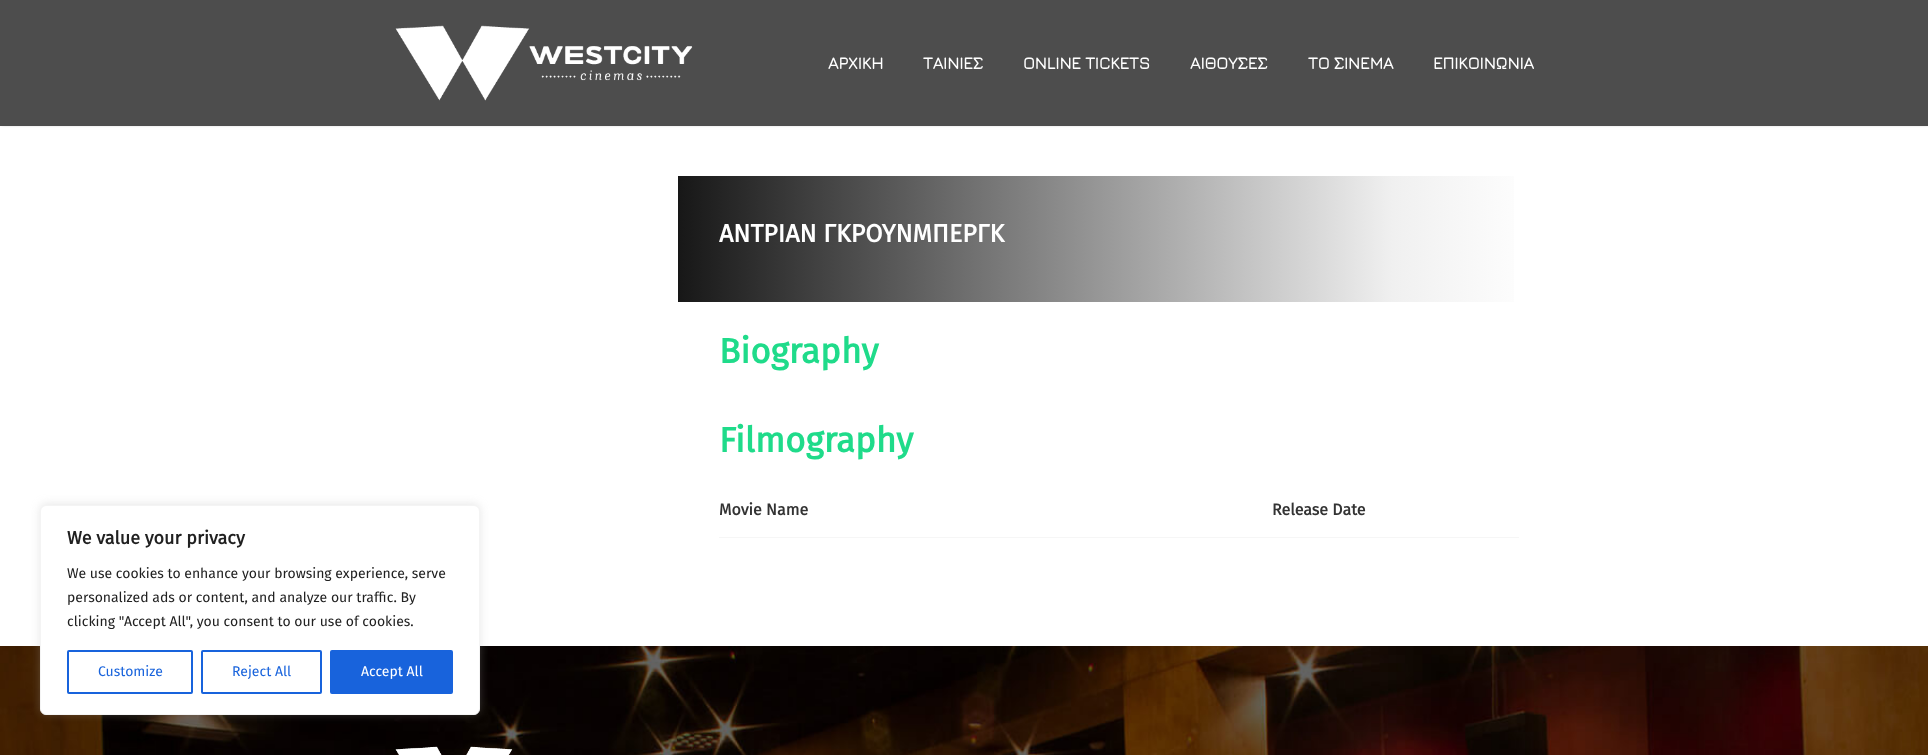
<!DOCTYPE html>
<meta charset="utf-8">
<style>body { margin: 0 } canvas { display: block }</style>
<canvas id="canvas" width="1928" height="755"></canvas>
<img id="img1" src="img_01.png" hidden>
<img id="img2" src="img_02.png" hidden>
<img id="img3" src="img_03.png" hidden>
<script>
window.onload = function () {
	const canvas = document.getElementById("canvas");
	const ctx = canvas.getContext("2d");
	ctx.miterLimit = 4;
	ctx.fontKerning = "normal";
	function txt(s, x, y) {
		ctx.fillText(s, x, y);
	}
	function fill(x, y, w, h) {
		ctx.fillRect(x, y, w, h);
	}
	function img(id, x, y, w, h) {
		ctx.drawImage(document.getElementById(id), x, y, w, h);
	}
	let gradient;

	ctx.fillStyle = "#FFFFFF";
	fill(0, 0, 1928, 755);
	ctx.fillStyle = "#000000";
	ctx.filter = "blur(2px)";
	ctx.beginPath();
	ctx.rect(1, -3, 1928, 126);
	ctx.fill();
	ctx.filter = "none";
	ctx.fillStyle = "#4D4D4D";
	fill(0, 0, 1928, 126);
	img("img1", 395, 25, 298, 76);
	gradient = ctx.createLinearGradient(678, 239, 1519, 239);
	gradient.addColorStop(0, "#171717");
	gradient.addColorStop(0.85, "#F0F0F0");
	gradient.addColorStop(1, "#FDFDFD");
	ctx.fillStyle = gradient;
	fill(678, 176, 836, 126);
	ctx.fillStyle = "#F6F6F6";
	fill(719, 537, 800, 1);
	img("img2", 0, 646, 1928, 109);
	img("img3", 395, 746, 118, 9);
	ctx.fillStyle = "rgba(172, 171, 171, 0.3)";
	ctx.filter = "blur(5px)";
	ctx.beginPath();
	ctx.roundRect(40, 504, 440, 210, 6);
	ctx.fill();
	ctx.filter = "none";
	ctx.fillStyle = "#FFFFFF";
	ctx.beginPath();
	ctx.roundRect(40.5, 505.5, 439, 209, 5.5);
	ctx.fill();
	ctx.strokeStyle = "#F4F4F4";
	ctx.stroke();
	ctx.beginPath();
	ctx.roundRect(68, 651, 124, 42, 1);
	ctx.strokeStyle = "#1863DC";
	ctx.lineWidth = 2;
	ctx.stroke();
	ctx.beginPath();
	ctx.roundRect(202, 651, 119, 42, 1);
	ctx.stroke();
	ctx.fillStyle = "#1863DC";
	ctx.beginPath();
	ctx.roundRect(331, 651, 121, 42, 1);
	ctx.fill();
	ctx.stroke();
	ctx.font = "bold 17px Jura";
	ctx.fillStyle = "#FFFFFF";
	txt("ΑΡΧΙΚΗ", 828, 69);
	txt("ΤΑΙΝΙΕΣ", 923, 69);
	txt("ONLINE TICKETS", 1023, 69);
	txt("ΑΙΘΟΥΣΕΣ", 1190, 69);
	txt("ΤΟ ΣΙΝΕΜΑ", 1308, 69);
	txt("ΕΠΙΚΟΙΝΩΝΙΑ", 1433, 69);
	ctx.font = "bold 25px Fira Sans";
	txt("ΑΝΤΡΙΑΝ ΓΚΡΟΥΝΜΠΕΡΓΚ", 719, 242);
	ctx.font = "bold 35px Fira Sans";
	ctx.fillStyle = "#1FDB8A";
	txt("Biography", 719, 363);
	txt("Filmography", 719, 452);
	ctx.font = "bold 16px Fira Sans";
	ctx.fillStyle = "#333333";
	txt("Movie Name", 719, 515);
	txt("Release Date", 1272, 515);
	ctx.font = "bold 18px Fira Sans";
	ctx.fillStyle = "#212121";
	txt("We value your privacy", 67, 544);
	ctx.font = "14px Fira Sans";
	txt("We use cookies to enhance your browsing experience, serve", 67, 578);
	txt("personalized ads or content, and analyze our traffic. By", 67, 602);
	txt("clicking \"Accept All\", you consent to our use of cookies.", 67, 626);
	ctx.fillStyle = "#1863DC";
	txt("Customize", 98, 676);
	txt("Reject All", 232, 676);
	ctx.fillStyle = "#FFFFFF";
	txt("Accept All", 361, 676);
};
</script>
